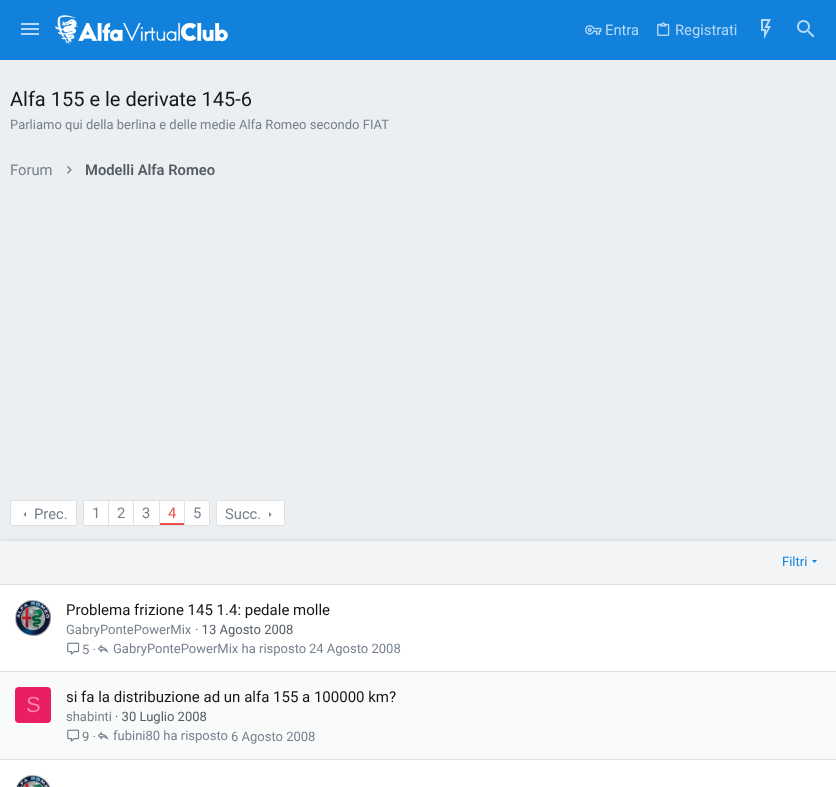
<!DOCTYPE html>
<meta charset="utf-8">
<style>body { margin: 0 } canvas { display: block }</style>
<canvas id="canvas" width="836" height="787"></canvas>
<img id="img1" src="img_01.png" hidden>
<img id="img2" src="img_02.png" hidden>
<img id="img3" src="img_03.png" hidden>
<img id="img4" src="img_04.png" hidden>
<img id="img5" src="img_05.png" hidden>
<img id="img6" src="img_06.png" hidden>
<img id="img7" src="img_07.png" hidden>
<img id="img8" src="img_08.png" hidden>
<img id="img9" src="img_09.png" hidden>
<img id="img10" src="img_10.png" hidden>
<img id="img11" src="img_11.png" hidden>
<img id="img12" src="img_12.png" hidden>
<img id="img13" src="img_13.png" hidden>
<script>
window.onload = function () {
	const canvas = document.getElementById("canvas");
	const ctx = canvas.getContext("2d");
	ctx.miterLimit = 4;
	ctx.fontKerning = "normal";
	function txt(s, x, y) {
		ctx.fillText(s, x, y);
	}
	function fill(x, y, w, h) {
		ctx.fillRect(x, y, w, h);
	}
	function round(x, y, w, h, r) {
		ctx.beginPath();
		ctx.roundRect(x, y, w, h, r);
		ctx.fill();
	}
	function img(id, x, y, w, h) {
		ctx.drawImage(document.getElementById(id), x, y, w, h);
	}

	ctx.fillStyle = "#ECEFF1";
	fill(0, 0, 836, 787);
	ctx.fillStyle = "#1181DC";
	fill(0, 0, 836, 60);
	img("img1", 21, 23, 18, 12);
	img("img2", 55, 15, 173, 30);
	img("img3", 585, 25, 17, 10);
	img("img4", 657, 22, 13, 14);
	img("img5", 761, 19, 10, 20);
	img("img6", 797, 20, 18, 18);
	img("img7", 67, 166, 5, 8);
	ctx.fillStyle = "#FFFFFF";
	ctx.beginPath();
	ctx.rect(10.5, 500.5, 66, 25);
	ctx.fill();
	ctx.strokeStyle = "#E0E0E0";
	ctx.stroke();
	ctx.fillStyle = "#76818D";
	ctx.beginPath();
	ctx.moveTo(26, 512);
	ctx.lineTo(23.5, 514.5);
	ctx.lineTo(26, 517);
	ctx.closePath();
	ctx.fill();
	ctx.fillStyle = "#FFFFFF";
	fill(84, 501, 24, 24);
	ctx.fillStyle = "#E0E0E0";
	fill(83, 500, 101, 1);
	fill(83, 525, 101, 1);
	fill(83, 500, 1, 26);
	ctx.fillStyle = "#FFFFFF";
	fill(109, 501, 24, 24);
	ctx.fillStyle = "#E0E0E0";
	fill(108, 500, 1, 26);
	ctx.fillStyle = "#FFFFFF";
	fill(134, 501, 25, 24);
	ctx.fillStyle = "#E0E0E0";
	fill(133, 500, 1, 26);
	ctx.fillStyle = "#FFFFFF";
	fill(160, 501, 24, 22);
	ctx.fillStyle = "#EA5050";
	fill(160, 523, 24, 2);
	ctx.fillStyle = "#E0E0E0";
	fill(159, 500, 1, 26);
	ctx.fillStyle = "#FFFFFF";
	ctx.beginPath();
	ctx.rect(184.5, 500.5, 25, 25);
	ctx.fill();
	ctx.stroke();
	ctx.beginPath();
	ctx.rect(216.5, 500.5, 68, 25);
	ctx.fill();
	ctx.stroke();
	ctx.fillStyle = "#76818D";
	ctx.beginPath();
	ctx.moveTo(269, 517);
	ctx.lineTo(271.5, 514.5);
	ctx.lineTo(269, 512);
	ctx.closePath();
	ctx.fill();
	ctx.fillStyle = "rgba(0, 0, 0, 0.2)";
	ctx.filter = "blur(2.5px)";
	ctx.beginPath();
	ctx.roundRect(0, 542, 836, 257, 4);
	ctx.fill();
	ctx.filter = "none";
	ctx.fillStyle = "#FFFFFF";
	fill(0, 585, 836, 202);
	ctx.fillStyle = "#F3F4F5";
	fill(0, 541, 836, 43);
	ctx.fillStyle = "#1181DC";
	ctx.beginPath();
	ctx.moveTo(812, 560);
	ctx.lineTo(814.5, 563);
	ctx.lineTo(817, 560);
	ctx.closePath();
	ctx.fill();
	ctx.fillStyle = "#E0E0E0";
	fill(0, 584, 836, 1);
	img("img8", 15, 600, 36, 36);
	img("img9", 67, 642, 13, 13);
	img("img10", 97, 644, 12, 10);
	ctx.fillStyle = "#F9FAFA";
	fill(0, 672, 836, 87);
	ctx.fillStyle = "#E0E0E0";
	fill(0, 671, 836, 1);
	ctx.fillStyle = "#E91E63";
	round(15, 687, 36, 36, 4);
	img("img11", 67, 729, 13, 13);
	img("img12", 97, 731, 12, 10);
	ctx.fillStyle = "#E0E0E0";
	fill(0, 759, 836, 1);
	img("img13", 16, 775, 35, 12);
	ctx.font = "14.75px Roboto";
	ctx.fillStyle = "#B8D9F5";
	txt("Entra", 605, 35);
	txt("Registrati", 675, 35);
	ctx.font = "20px Roboto";
	ctx.fillStyle = "#141618";
	txt("Alfa 155 e le derivate 145-6", 10, 106);
	ctx.font = "13px Roboto";
	ctx.fillStyle = "#76818D";
	txt("Parliamo qui della berlina e delle medie Alfa Romeo secondo FIAT", 10, 129);
	ctx.font = "14.75px Roboto";
	txt("Forum", 10, 175);
	ctx.font = "600 14.75px Roboto";
	ctx.fillStyle = "#535B63";
	txt("Modelli Alfa Romeo", 85, 175);
	ctx.font = "14.75px Roboto";
	ctx.fillStyle = "#76818D";
	txt("Prec.", 34, 519);
	txt("1", 92, 518);
	txt("2", 117, 518);
	txt("3", 142, 518);
	ctx.fillStyle = "#EA5050";
	txt("4", 168, 518);
	ctx.fillStyle = "#76818D";
	txt("5", 193, 518);
	txt("Succ.", 225, 519);
	ctx.font = "13px Roboto";
	ctx.fillStyle = "#1181DC";
	txt("Filtri", 782, 566);
	ctx.font = "15px Roboto";
	ctx.fillStyle = "#141618";
	txt("Problema frizione 145 1.4: pedale molle", 66, 615);
	ctx.font = "13px Roboto";
	ctx.fillStyle = "#76818D";
	txt("GabryPontePowerMix", 66, 634);
	ctx.fillStyle = "#535B63";
	txt("· 13 Agosto 2008", 195, 634);
	ctx.fillStyle = "#76818D";
	txt("5 ·", 82, 654);
	txt("GabryPontePowerMix ha risposto", 113, 653);
	txt("24 Agosto 2008", 309, 653);
	ctx.font = "22px Liberation Sans";
	ctx.fillStyle = "#FF80AB";
	txt("S", 26, 712);
	ctx.font = "15px Roboto";
	ctx.fillStyle = "#141618";
	txt("si fa la distribuzione ad un alfa 155 a 100000 km?", 66, 702);
	ctx.font = "13px Roboto";
	ctx.fillStyle = "#76818D";
	txt("shabinti", 66, 721);
	ctx.fillStyle = "#535B63";
	txt("· 30 Luglio 2008", 115, 721);
	ctx.fillStyle = "#76818D";
	txt("9 ·", 82, 741);
	txt("fubini80 ha risposto", 113, 740);
	txt("6 Agosto 2008", 231, 741);
};
</script>
